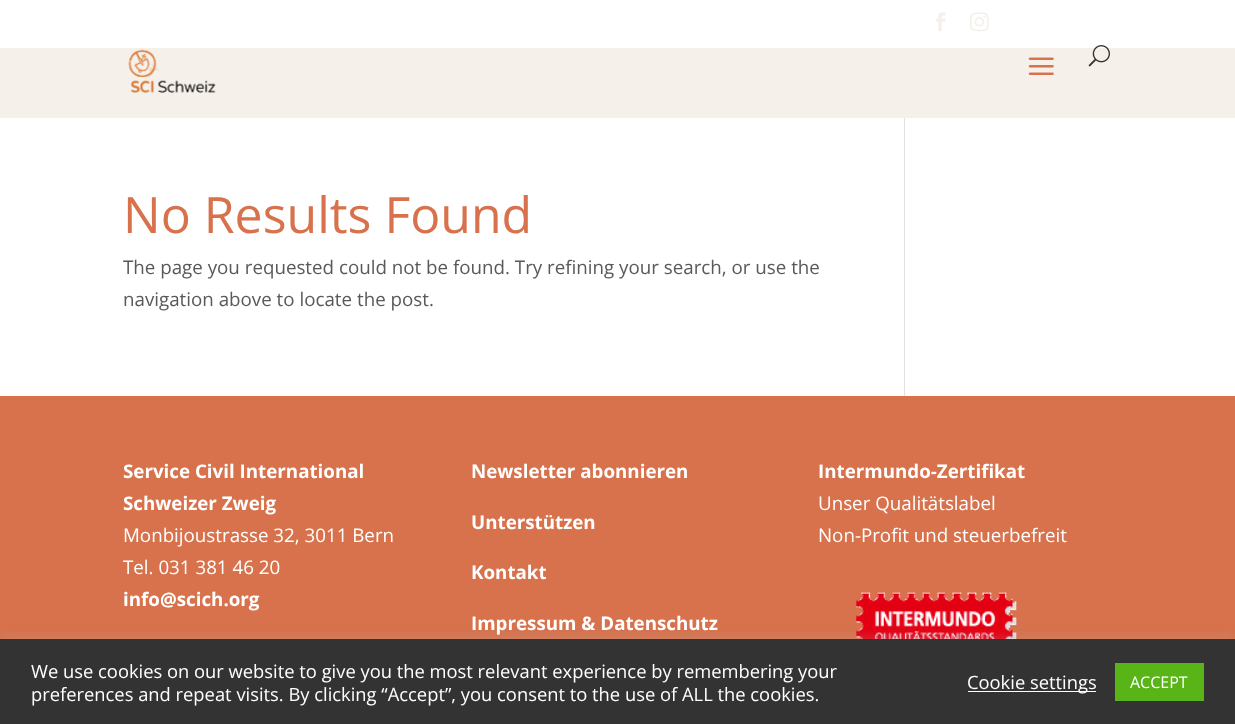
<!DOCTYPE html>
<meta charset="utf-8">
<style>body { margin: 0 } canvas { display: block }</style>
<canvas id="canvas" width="1235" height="724"></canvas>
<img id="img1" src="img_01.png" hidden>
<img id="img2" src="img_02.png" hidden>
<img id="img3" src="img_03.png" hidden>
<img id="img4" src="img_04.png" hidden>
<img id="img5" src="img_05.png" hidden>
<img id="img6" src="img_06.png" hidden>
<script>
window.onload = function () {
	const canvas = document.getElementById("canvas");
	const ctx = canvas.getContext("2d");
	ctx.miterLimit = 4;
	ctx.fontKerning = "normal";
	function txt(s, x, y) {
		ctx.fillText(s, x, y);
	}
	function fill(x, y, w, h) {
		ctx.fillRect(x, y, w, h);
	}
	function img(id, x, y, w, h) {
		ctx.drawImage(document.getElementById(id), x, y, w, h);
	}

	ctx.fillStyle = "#FFFFFF";
	fill(0, 0, 1235, 724);
	img("img1", 936, 12, 10, 20);
	img("img2", 970, 12, 19, 20);
	ctx.fillStyle = "#E2E2E2";
	fill(904, 116, 1, 280);
	ctx.fillStyle = "#F6F0EA";
	fill(0, 48, 1235, 70);
	img("img3", 128, 49, 88, 44);
	img("img4", 1028, 57, 26, 18);
	img("img5", 1088, 45, 22, 22);
	ctx.fillStyle = "#D7724D";
	fill(0, 396, 1235, 243);
	img("img6", 856, 592, 161, 47);
	ctx.fillStyle = "rgba(172, 171, 171, 0.3)";
	ctx.filter = "blur(6px)";
	ctx.beginPath();
	ctx.rect(0, 638, 1235, 86);
	ctx.fill();
	ctx.filter = "none";
	ctx.fillStyle = "#333333";
	fill(0, 639, 1235, 85);
	ctx.fillStyle = "#FFFFFF";
	fill(968, 691, 128, 1);
	ctx.fillStyle = "#59B517";
	fill(1115, 663, 89, 38);
	ctx.font = "50px Open Sans";
	ctx.fillStyle = "#D7724D";
	txt("No Results Found", 123, 233);
	ctx.font = "18.75px Open Sans";
	ctx.fillStyle = "#58595B";
	txt("The page you requested could not be found. Try refining your search, or use the", 123, 274);
	txt("navigation above to locate the post.", 123, 306);
	ctx.font = "bold 18.75px Open Sans";
	ctx.fillStyle = "#FFFFFF";
	txt("Service Civil International", 123, 478);
	txt("Schweizer Zweig", 123, 510);
	ctx.font = "18.75px Open Sans";
	txt("Monbijoustrasse 32, 3011 Bern", 123, 542);
	txt("Tel. 031 381 46 20", 123, 574);
	ctx.font = "bold 18.75px Open Sans";
	txt("info@scich.org", 123, 606);
	txt("Newsletter abonnieren", 471, 478);
	txt("Unterstützen", 471, 529);
	txt("Kontakt", 471, 579);
	txt("Impressum & Datenschutz", 471, 630);
	txt("Intermundo-Zertifikat", 818, 478);
	ctx.font = "18.75px Open Sans";
	txt("Unser Qualitätslabel", 818, 510);
	txt("Non-Profit und steuerbefreit", 818, 542);
	ctx.font = "18.35px Open Sans";
	txt("We use cookies on our website to give you the most relevant experience by remembering your", 31, 678);
	txt("preferences and repeat visits. By clicking “Accept”, you consent to the use of ALL the cookies.", 31, 701);
	txt("Cookie settings", 967, 689);
	ctx.font = "16px Open Sans";
	txt("ACCEPT", 1130, 688);
};
</script>
